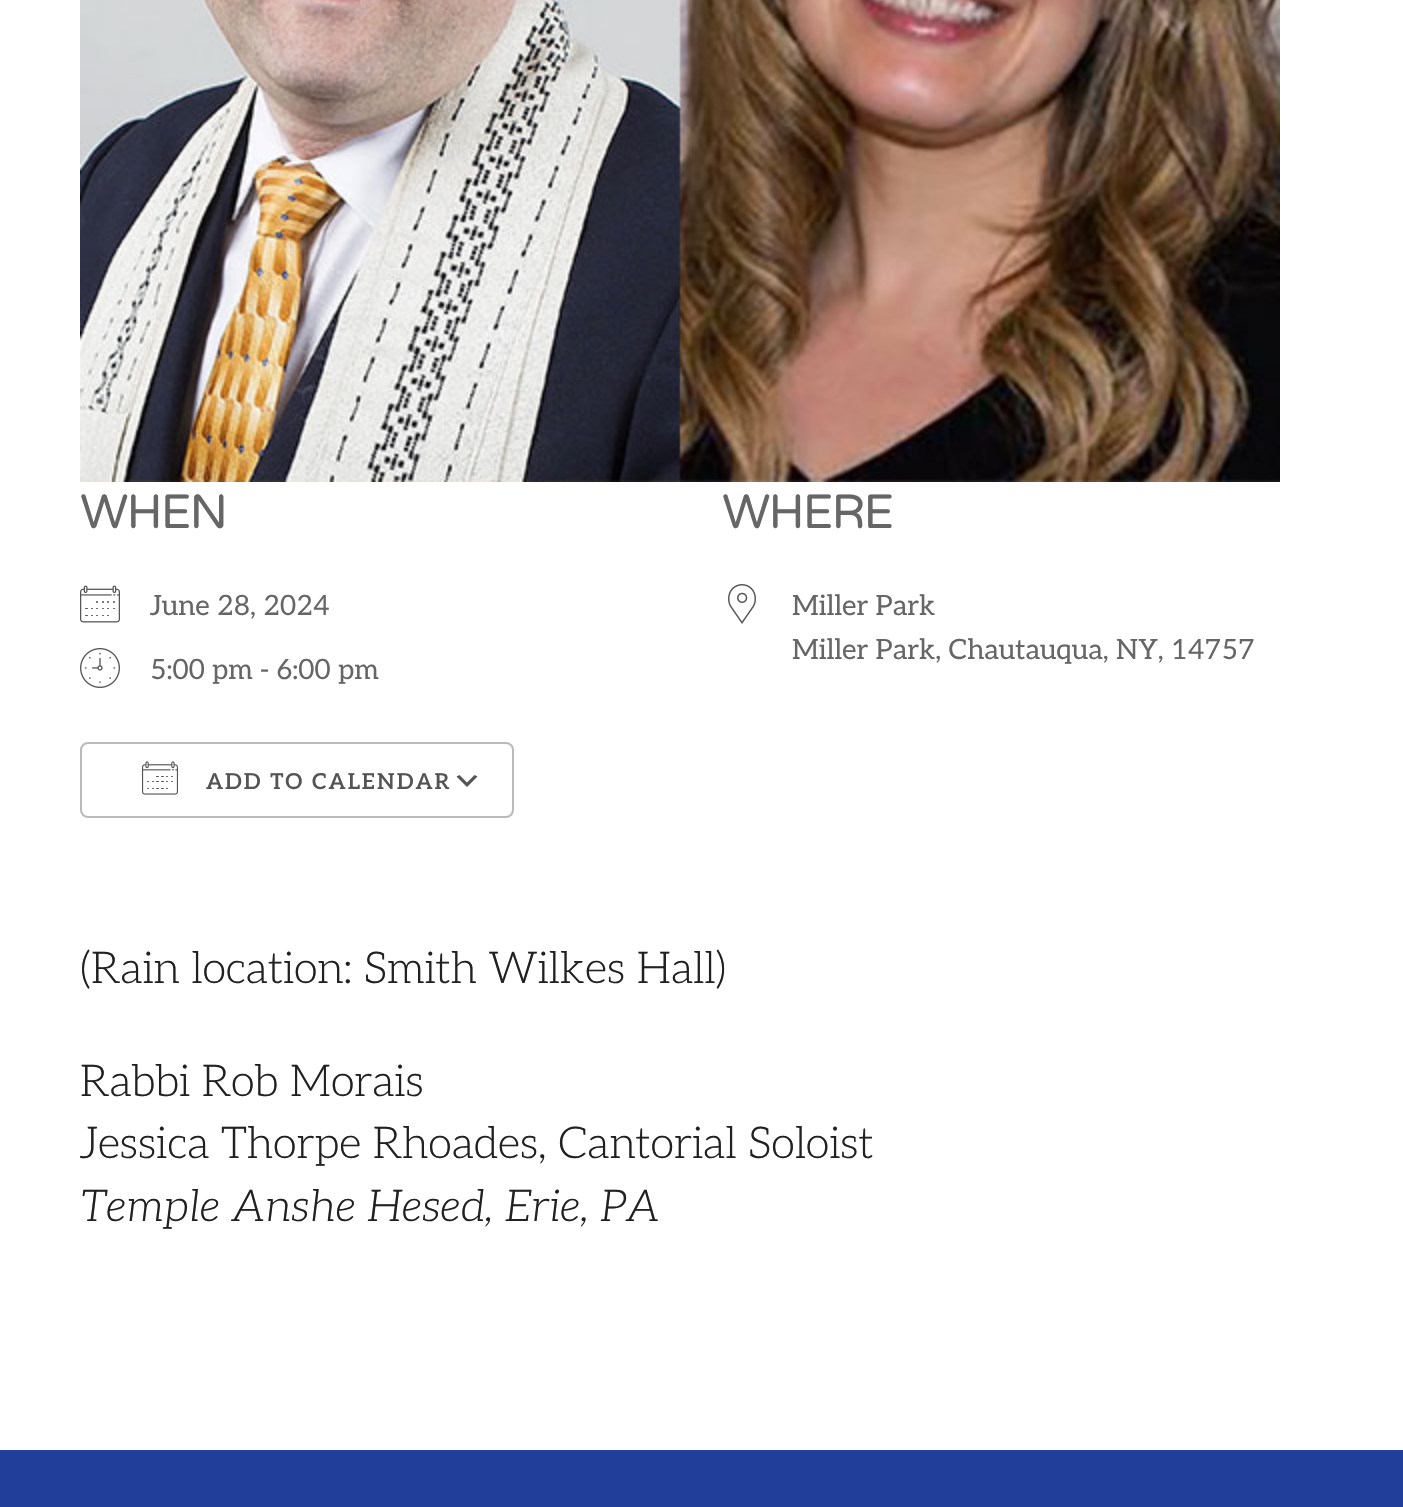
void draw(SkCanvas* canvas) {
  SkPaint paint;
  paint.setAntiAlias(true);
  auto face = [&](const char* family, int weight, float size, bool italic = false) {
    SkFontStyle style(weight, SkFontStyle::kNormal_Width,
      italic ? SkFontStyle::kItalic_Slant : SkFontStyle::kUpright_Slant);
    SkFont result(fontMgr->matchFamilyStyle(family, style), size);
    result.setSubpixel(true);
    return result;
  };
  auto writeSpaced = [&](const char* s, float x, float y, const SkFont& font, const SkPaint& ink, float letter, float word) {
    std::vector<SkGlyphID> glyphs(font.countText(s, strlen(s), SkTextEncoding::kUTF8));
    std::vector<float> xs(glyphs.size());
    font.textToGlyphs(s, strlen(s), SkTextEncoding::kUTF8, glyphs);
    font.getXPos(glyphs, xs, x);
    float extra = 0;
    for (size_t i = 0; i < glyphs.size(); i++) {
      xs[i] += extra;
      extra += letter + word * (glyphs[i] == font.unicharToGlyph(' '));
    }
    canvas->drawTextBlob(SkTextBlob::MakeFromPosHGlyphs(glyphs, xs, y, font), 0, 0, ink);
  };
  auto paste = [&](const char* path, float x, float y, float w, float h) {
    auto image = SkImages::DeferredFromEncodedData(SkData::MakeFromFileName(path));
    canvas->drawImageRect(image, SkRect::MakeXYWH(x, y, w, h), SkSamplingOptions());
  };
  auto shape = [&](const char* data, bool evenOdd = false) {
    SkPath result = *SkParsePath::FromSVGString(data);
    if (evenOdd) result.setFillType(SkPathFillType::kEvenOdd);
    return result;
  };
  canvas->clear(0xff203e9a);
  paint.setColor(0xffffffff);
  canvas->drawRect(SkRect::MakeXYWH(0, 0, 1403, 1450), paint);
  paste("img/1.png", 80, 0, 1200, 482);
  paste("img/2.png", 80, 585, 40, 38);
  paste("img/3.png", 80, 648, 40, 40);
  paint.setColor(0xff555555);
  canvas->drawPath(shape("M459.5 775L467 782.5L474.5 775L477.5 776.5L467 787L456.5 776.5Z"), paint);
  paint.setStroke(true);
  paint.setStrokeWidth(2);
  paint.setColor(0xffbababa);
  canvas->drawRoundRect(SkRect::MakeXYWH(81, 743, 432, 74), 7, 7, paint);
  paste("img/4.png", 142, 761, 36, 34);
  paste("img/5.png", 728, 584, 28, 40);
  auto f0 = face("Varela Round", 400, 48);
  paint.setStroke(false);
  paint.setColor(0xff666666);
  writeSpaced("WHEN", 80, 528, f0, paint, -2, 0);
  auto f1 = face("Aleo", 400, 28);
  canvas->drawString("June 28, 2024", 150, 615, f1, paint);
  canvas->drawString("5:00 pm - 6:00 pm", 150, 679, f1, paint);
  auto f2 = face("Aleo", 600, 22);
  paint.setColor(0xff545454);
  writeSpaced("ADD TO CALENDAR", 206, 789, f2, paint, 2, 0);
  paint.setColor(0xff666666);
  writeSpaced("WHERE", 722, 528, f0, paint, -2, 0);
  canvas->drawString("Miller Park", 792, 615, f1, paint);
  canvas->drawString("Miller Park, Chautauqua, NY, 14757", 792, 659, f1, paint);
  auto f3 = face("Aleo", 300, 44);
  paint.setColor(0xff212121);
  {
    const struct { const char* s; float x, y; } items[] = {
      {"(Rain location: Smith Wilkes Hall)", 80, 983},
      {"Rabbi Rob Morais", 80, 1096},
      {"Jessica Thorpe Rhoades, Cantorial Soloist", 80, 1158},
    };
    for (auto [s, x, y] : items) {
      canvas->drawString(s, x, y, f3, paint);
    }
  }
  auto f4 = face("Aleo", 300, 44, true);
  canvas->drawString("Temple Anshe Hesed, Erie, PA", 80, 1221, f4, paint);
}
